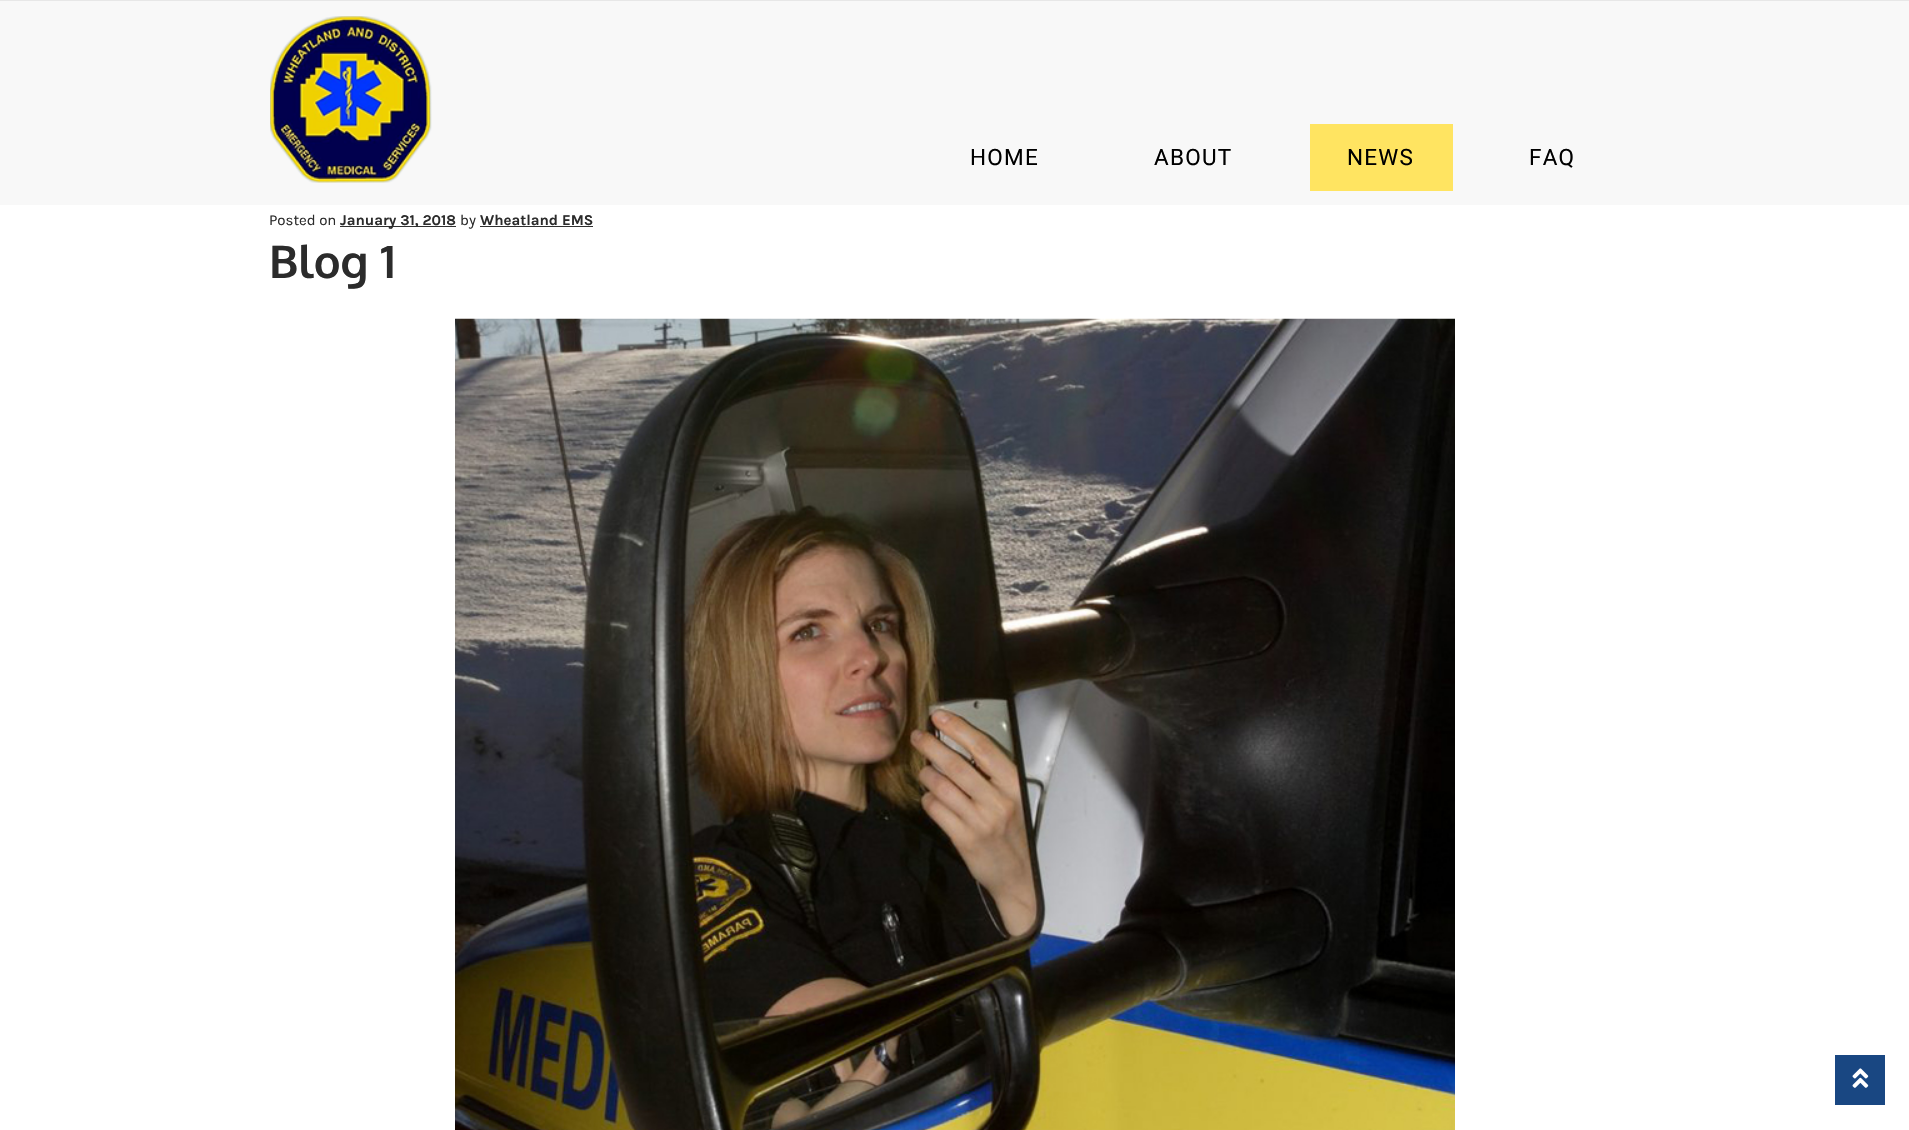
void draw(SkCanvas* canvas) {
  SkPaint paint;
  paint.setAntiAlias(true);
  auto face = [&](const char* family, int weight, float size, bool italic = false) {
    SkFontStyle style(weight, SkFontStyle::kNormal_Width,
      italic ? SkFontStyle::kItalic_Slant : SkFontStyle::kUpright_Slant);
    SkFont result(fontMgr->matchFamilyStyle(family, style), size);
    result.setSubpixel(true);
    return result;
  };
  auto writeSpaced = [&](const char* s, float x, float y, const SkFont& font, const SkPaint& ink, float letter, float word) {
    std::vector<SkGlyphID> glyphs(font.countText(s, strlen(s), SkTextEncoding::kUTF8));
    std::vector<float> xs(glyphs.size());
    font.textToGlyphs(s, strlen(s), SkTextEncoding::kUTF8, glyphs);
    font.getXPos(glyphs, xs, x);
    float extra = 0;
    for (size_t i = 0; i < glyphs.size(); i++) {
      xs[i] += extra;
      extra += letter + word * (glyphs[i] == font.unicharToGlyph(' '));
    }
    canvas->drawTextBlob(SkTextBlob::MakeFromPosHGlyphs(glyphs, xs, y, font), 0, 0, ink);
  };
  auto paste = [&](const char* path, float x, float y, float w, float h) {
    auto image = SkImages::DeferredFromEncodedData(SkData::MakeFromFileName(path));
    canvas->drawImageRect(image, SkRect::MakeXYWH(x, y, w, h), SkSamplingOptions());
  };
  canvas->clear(0xffffffff);
  paint.setColor(0xfff8f8f8);
  canvas->drawRect(SkRect::MakeXYWH(0, 1, 1909, 204), paint);
  paint.setColor(0xffe7e7e7);
  canvas->drawRect(SkRect::MakeXYWH(0, 0, 1909, 1), paint);
  paste("img/1.png", 270, 16, 162, 167);
  {
    const struct { float x, y, w, h; SkColor color; } items[] = {
      {1310, 124, 143, 67, 0xffffe461},
      {340, 226, 116, 1, 0xff303030},
      {480, 226, 113, 1, 0xff303030},
    };
    for (auto [x, y, w, h, color] : items) {
      paint.setColor(color);
      canvas->drawRect(SkRect::MakeXYWH(x, y, w, h), paint);
    }
  }
  paste("img/2.png", 455, 318, 1000, 812);
  paint.setColor(0xff194782);
  canvas->drawRect(SkRect::MakeXYWH(1835, 1055, 50, 50), paint);
  paste("img/3.png", 1852, 1068, 17, 20);
  auto f0 = face("Roboto", 400, 22.5f);
  paint.setColor(0xff000000);
  {
    const struct { const char* s; float x, y; } items[] = {
      {"HOME", 970, 165},
      {"ABOUT", 1154, 165},
      {"NEWS", 1347, 165},
      {"FAQ", 1529, 165},
    };
    for (auto [s, x, y] : items) {
      writeSpaced(s, x, y, f0, paint, 1.25f, 0);
    }
  }
  auto f1 = face("Karla", 400, 15);
  paint.setColor(0xff2b2b2b);
  canvas->drawString("Posted on", 269, 225, f1, paint);
  auto f2 = face("Karla", 700, 15);
  canvas->drawString("January 31, 2018", 340, 225, f2, paint);
  canvas->drawString("by", 460, 225, f1, paint);
  canvas->drawString("Wheatland EMS", 480, 225, f2, paint);
  auto f3 = face("Oxygen", 700, 45);
  canvas->drawString("Blog 1", 269, 278, f3, paint);
}
